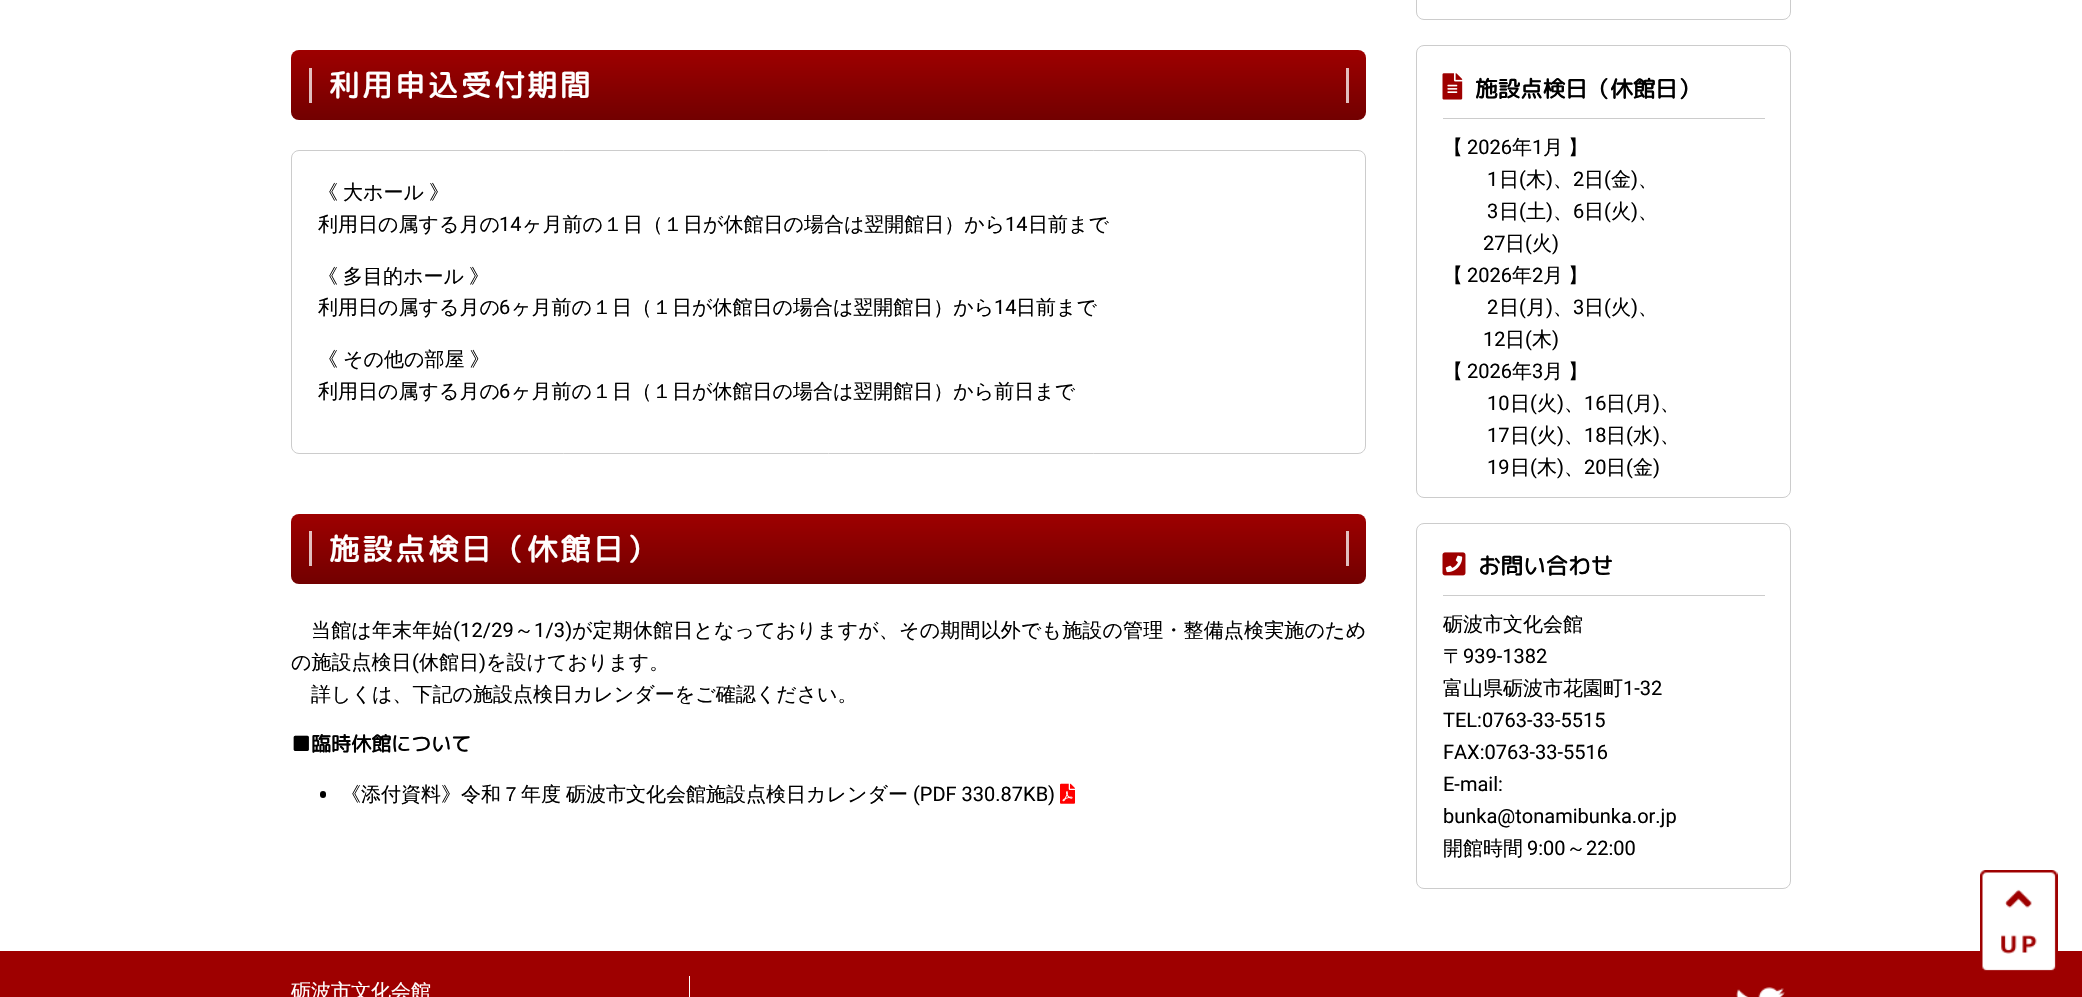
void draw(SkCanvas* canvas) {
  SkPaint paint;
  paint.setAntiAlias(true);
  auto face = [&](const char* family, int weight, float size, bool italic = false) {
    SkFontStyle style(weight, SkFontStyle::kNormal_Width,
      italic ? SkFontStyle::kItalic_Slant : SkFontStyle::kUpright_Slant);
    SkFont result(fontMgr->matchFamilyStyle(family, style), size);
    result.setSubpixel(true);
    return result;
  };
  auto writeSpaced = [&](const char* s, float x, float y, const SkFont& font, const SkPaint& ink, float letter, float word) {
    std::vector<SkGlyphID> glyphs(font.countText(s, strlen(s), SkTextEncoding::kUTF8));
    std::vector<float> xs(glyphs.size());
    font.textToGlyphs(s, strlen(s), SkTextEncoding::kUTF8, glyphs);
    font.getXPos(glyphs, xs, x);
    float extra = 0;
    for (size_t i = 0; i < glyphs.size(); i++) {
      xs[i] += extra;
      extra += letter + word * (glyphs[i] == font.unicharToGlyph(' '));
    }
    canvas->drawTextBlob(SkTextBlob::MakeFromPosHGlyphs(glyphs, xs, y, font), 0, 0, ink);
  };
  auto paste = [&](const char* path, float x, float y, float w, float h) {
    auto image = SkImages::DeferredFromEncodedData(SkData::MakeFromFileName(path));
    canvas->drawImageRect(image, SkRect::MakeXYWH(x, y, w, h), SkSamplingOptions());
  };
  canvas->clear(0xffffffff);
  {
    const SkColor colors[] = {0xff9e0000, 0xff720000};
    const float stops[] = {0, 1};
    const SkPoint ends[] = {{829, 50}, {829, 120}};
    paint.setShader(SkGradientShader::MakeLinear(ends, colors, stops, 2, SkTileMode::kClamp));
    paint.setAlpha(255);
  }
  canvas->drawRoundRect(SkRect::MakeXYWH(291, 50, 1075, 70), 8, 8, paint);
  {
    const SkColor colors[] = {0xffe7bfbf, 0xffdcbfbf};
    const float stops[] = {0, 1};
    const SkPoint ends[] = {{829, 50}, {829, 120}};
    paint.setShader(SkGradientShader::MakeLinear(ends, colors, stops, 2, SkTileMode::kClamp));
    paint.setAlpha(255);
  }
  canvas->drawRect(SkRect::MakeXYWH(1346, 68, 3, 35), paint);
  canvas->drawRect(SkRect::MakeXYWH(309, 68, 3, 35), paint);
  paint.setStroke(true);
  paint.setStrokeWidth(1);
  paint.setShader(nullptr);
  paint.setColor(0xffcccccc);
  canvas->drawRoundRect(SkRect::MakeXYWH(291.5f, 150.5f, 1074, 303), 7.5f, 7.5f, paint);
  paint.setStroke(false);
  {
    const SkColor colors[] = {0xff9e0000, 0xff720000};
    const float stops[] = {0, 1};
    const SkPoint ends[] = {{829, 514}, {829, 584}};
    paint.setShader(SkGradientShader::MakeLinear(ends, colors, stops, 2, SkTileMode::kClamp));
    paint.setAlpha(255);
  }
  canvas->drawRoundRect(SkRect::MakeXYWH(291, 514, 1075, 70), 8, 8, paint);
  {
    const SkColor colors[] = {0xffe7bfbf, 0xffdcbfbf};
    const float stops[] = {0, 1};
    const SkPoint ends[] = {{829, 514}, {829, 584}};
    paint.setShader(SkGradientShader::MakeLinear(ends, colors, stops, 2, SkTileMode::kClamp));
    paint.setAlpha(255);
  }
  canvas->drawRect(SkRect::MakeXYWH(1346, 531, 3, 35), paint);
  canvas->drawRect(SkRect::MakeXYWH(309, 531, 3, 35), paint);
  paint.setShader(nullptr);
  paint.setColor(0xff000000);
  canvas->drawRoundRect(SkRect::MakeXYWH(320, 791, 6, 7), 3, 3, paint);
  paste("img/1.png", 1060, 783, 15, 21);
  paint.setStroke(true);
  paint.setColor(0xffcccccc);
  canvas->drawRoundRect(SkRect::MakeXYWH(1416.5f, -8.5f, 374, 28), 7.5f, 7.5f, paint);
  canvas->drawRoundRect(SkRect::MakeXYWH(1416.5f, 45.5f, 374, 452), 7.5f, 7.5f, paint);
  paint.setStroke(false);
  canvas->drawRect(SkRect::MakeXYWH(1443, 118, 322, 1), paint);
  paste("img/2.png", 1442, 73, 21, 27);
  paint.setStroke(true);
  canvas->drawRoundRect(SkRect::MakeXYWH(1416.5f, 523.5f, 374, 365), 7.5f, 7.5f, paint);
  paint.setStroke(false);
  canvas->drawRect(SkRect::MakeXYWH(1443, 595, 322, 1), paint);
  paste("img/3.png", 1442, 552, 24, 24);
  paint.setColor(0xff9e0000);
  canvas->drawRect(SkRect::MakeXYWH(0, 951, 2082, 46), paint);
  paste("img/4.png", 1980, 870, 78, 101);
  paint.setColor(0xffffffff);
  canvas->drawRect(SkRect::MakeXYWH(689, 976, 1, 21), paint);
  paste("img/5.png", 1736, 987, 49, 10);
  auto f0 = face("Rounded Mplus 1c", 700, 30);
  writeSpaced("利用申込受付期間", 329, 96, f0, paint, 3, 0);
  auto f1 = face("WenQuanYi Zen Hei", 500, 20);
  paint.setColor(0xff000000);
  writeSpaced("《 大ホール 》", 318, 199, f1, paint, 0, -1);
  canvas->drawString("利用日の属する月の", 318, 231, f1, paint);
  auto f2 = face("Roboto", 400, 20);
  canvas->drawString("14", 499, 231, f2, paint);
  canvas->drawString("ヶ月前の１日（１日が休館日の場合は翌開館日）から", 522, 231, f1, paint);
  canvas->drawString("14", 1005, 231, f2, paint);
  canvas->drawString("日前まで", 1028, 231, f1, paint);
  writeSpaced("《 多目的ホール 》", 318, 283, f1, paint, 0, -1);
  canvas->drawString("利用日の属する月の", 318, 314, f1, paint);
  canvas->drawString("6", 499, 314, f2, paint);
  canvas->drawString("ヶ月前の１日（１日が休館日の場合は翌開館日）から", 511, 314, f1, paint);
  canvas->drawString("14", 994, 314, f2, paint);
  canvas->drawString("日前まで", 1016, 314, f1, paint);
  writeSpaced("《 その他の部屋 》", 318, 366, f1, paint, 0, -1);
  canvas->drawString("利用日の属する月の", 318, 398, f1, paint);
  canvas->drawString("6", 499, 398, f2, paint);
  canvas->drawString("ヶ月前の１日（１日が休館日の場合は翌開館日）から前日まで", 511, 398, f1, paint);
  paint.setColor(0xffffffff);
  writeSpaced("施設点検日（休館日）", 329, 560, f0, paint, 3, 0);
  paint.setColor(0xff000000);
  writeSpaced("当館は年末年始", 311, 637, f1, paint, 0.15f, 0);
  writeSpaced("(12/29", 453, 637, f2, paint, 0.15f, 0);
  writeSpaced("～", 514, 637, f1, paint, 0.15f, 0);
  writeSpaced("1/3)", 534, 637, f2, paint, 0.15f, 0);
  writeSpaced("が定期休館日となっておりますが、その期間以外でも施設の管理・整備点検実施のため", 572, 637, f1, paint, 0.15f, 0);
  canvas->drawString("の施設点検日", 291, 669, f1, paint);
  canvas->drawString("(", 412, 669, f2, paint);
  canvas->drawString("休館日", 419, 669, f1, paint);
  canvas->drawString(")", 479, 669, f2, paint);
  canvas->drawString("を設けております。", 486, 669, f1, paint);
  canvas->drawString("詳しくは、下記の施設点検日カレンダーをご確認ください。", 311, 701, f1, paint);
  auto f3 = face("Rounded Mplus 1c", 700, 20);
  canvas->drawString("■臨時休館について", 291, 751, f3, paint);
  canvas->drawString("《添付資料》令和７年度", 341, 801, f1, paint);
  canvas->drawString("砺波市文化会館施設点検日カレンダー", 566, 801, f1, paint);
  canvas->drawString("(PDF 330.87KB)", 913, 801, f2, paint);
  auto f4 = face("Rounded Mplus 1c", 700, 22.5f);
  canvas->drawString("施設点検日（休館日）", 1475, 97, f4, paint);
  canvas->drawString("【", 1443, 154, f1, paint);
  canvas->drawString("2026", 1467, 154, f2, paint);
  canvas->drawString("年", 1512, 154, f1, paint);
  canvas->drawString("1", 1532, 154, f2, paint);
  writeSpaced("月 】", 1543, 154, f1, paint, 0, -1);
  canvas->drawString("1", 1487, 186, f2, paint);
  canvas->drawString("日", 1499, 186, f1, paint);
  canvas->drawString("(", 1519, 186, f2, paint);
  canvas->drawString("木", 1526, 186, f1, paint);
  canvas->drawString(")", 1546, 186, f2, paint);
  canvas->drawString("2", 1573, 186, f2, paint);
  canvas->drawString("日", 1584, 186, f1, paint);
  canvas->drawString("(", 1604, 186, f2, paint);
  canvas->drawString("金", 1611, 186, f1, paint);
  canvas->drawString(")", 1631, 186, f2, paint);
  canvas->drawString("、", 1553, 186, f1, paint);
  canvas->drawString("、", 1638, 186, f1, paint);
  canvas->drawString("3", 1487, 218, f2, paint);
  canvas->drawString("日", 1499, 218, f1, paint);
  canvas->drawString("(", 1519, 218, f2, paint);
  canvas->drawString("土", 1526, 218, f1, paint);
  canvas->drawString(")", 1546, 218, f2, paint);
  canvas->drawString("、", 1553, 218, f1, paint);
  canvas->drawString("6", 1573, 218, f2, paint);
  canvas->drawString("日", 1584, 218, f1, paint);
  canvas->drawString("(", 1604, 218, f2, paint);
  canvas->drawString("火", 1611, 218, f1, paint);
  canvas->drawString(")", 1631, 218, f2, paint);
  canvas->drawString("、", 1638, 218, f1, paint);
  canvas->drawString("27", 1483, 250, f2, paint);
  canvas->drawString("日", 1505, 250, f1, paint);
  canvas->drawString("(", 1525, 250, f2, paint);
  canvas->drawString("火", 1532, 250, f1, paint);
  canvas->drawString(")", 1552, 250, f2, paint);
  canvas->drawString("【", 1443, 282, f1, paint);
  canvas->drawString("2026", 1467, 282, f2, paint);
  canvas->drawString("年", 1512, 282, f1, paint);
  canvas->drawString("2", 1532, 282, f2, paint);
  writeSpaced("月 】", 1543, 282, f1, paint, 0, -1);
  canvas->drawString("2", 1487, 314, f2, paint);
  canvas->drawString("日", 1499, 314, f1, paint);
  canvas->drawString("(", 1519, 314, f2, paint);
  canvas->drawString("月", 1526, 314, f1, paint);
  canvas->drawString(")", 1546, 314, f2, paint);
  canvas->drawString("、", 1553, 314, f1, paint);
  canvas->drawString("3", 1573, 314, f2, paint);
  canvas->drawString("日", 1584, 314, f1, paint);
  canvas->drawString("(", 1604, 314, f2, paint);
  canvas->drawString("火", 1611, 314, f1, paint);
  canvas->drawString(")", 1631, 314, f2, paint);
  canvas->drawString("、", 1638, 314, f1, paint);
  canvas->drawString("12", 1483, 346, f2, paint);
  canvas->drawString("日", 1505, 346, f1, paint);
  canvas->drawString("(", 1525, 346, f2, paint);
  canvas->drawString("木", 1532, 346, f1, paint);
  canvas->drawString(")", 1552, 346, f2, paint);
  canvas->drawString("【", 1443, 378, f1, paint);
  canvas->drawString("2026", 1467, 378, f2, paint);
  canvas->drawString("年", 1512, 378, f1, paint);
  canvas->drawString("3", 1532, 378, f2, paint);
  writeSpaced("月 】", 1543, 378, f1, paint, 0, -1);
  canvas->drawString("10", 1487, 410, f2, paint);
  canvas->drawString("日", 1510, 410, f1, paint);
  canvas->drawString("(", 1530, 410, f2, paint);
  canvas->drawString("火", 1537, 410, f1, paint);
  canvas->drawString(")", 1557, 410, f2, paint);
  canvas->drawString("、", 1564, 410, f1, paint);
  canvas->drawString("16", 1584, 410, f2, paint);
  canvas->drawString("日", 1606, 410, f1, paint);
  canvas->drawString("(", 1626, 410, f2, paint);
  canvas->drawString("月", 1633, 410, f1, paint);
  canvas->drawString(")", 1653, 410, f2, paint);
  canvas->drawString("、", 1660, 410, f1, paint);
  canvas->drawString("17", 1487, 442, f2, paint);
  canvas->drawString("日", 1510, 442, f1, paint);
  canvas->drawString("(", 1530, 442, f2, paint);
  canvas->drawString("火", 1537, 442, f1, paint);
  canvas->drawString(")", 1557, 442, f2, paint);
  canvas->drawString("、", 1564, 442, f1, paint);
  canvas->drawString("18", 1584, 442, f2, paint);
  canvas->drawString("日", 1606, 442, f1, paint);
  canvas->drawString("(", 1626, 442, f2, paint);
  canvas->drawString("水", 1633, 442, f1, paint);
  canvas->drawString(")", 1653, 442, f2, paint);
  canvas->drawString("、", 1660, 442, f1, paint);
  canvas->drawString("19", 1487, 474, f2, paint);
  canvas->drawString("日", 1510, 474, f1, paint);
  canvas->drawString("(", 1530, 474, f2, paint);
  canvas->drawString("木", 1537, 474, f1, paint);
  canvas->drawString(")", 1557, 474, f2, paint);
  canvas->drawString("、", 1564, 474, f1, paint);
  canvas->drawString("20", 1584, 474, f2, paint);
  canvas->drawString("日", 1606, 474, f1, paint);
  canvas->drawString("(", 1626, 474, f2, paint);
  canvas->drawString("金", 1633, 474, f1, paint);
  canvas->drawString(")", 1653, 474, f2, paint);
  canvas->drawString("お問い合わせ", 1478, 574, f4, paint);
  canvas->drawString("砺波市文化会館", 1443, 631, f1, paint);
  canvas->drawString("〒", 1443, 663, f1, paint);
  canvas->drawString("939-1382", 1463, 663, f2, paint);
  canvas->drawString("富山県砺波市花園町", 1443, 695, f1, paint);
  {
    const struct { const char* s; float x, y; } items[] = {
      {"1-32", 1623, 695},
      {"TEL:0763-33-5515", 1443, 727},
      {"FAX:0763-33-5516", 1443, 759},
      {"E-mail:", 1443, 791},
      {"bunka@tonamibunka.or.jp", 1443, 823},
    };
    for (auto [s, x, y] : items) {
      canvas->drawString(s, x, y, f2, paint);
    }
  }
  canvas->drawString("開館時間", 1443, 855, f1, paint);
  canvas->drawString("9:00", 1527, 855, f2, paint);
  canvas->drawString("～", 1566, 855, f1, paint);
  canvas->drawString("22:00", 1586, 855, f2, paint);
  paint.setColor(0xffffffff);
  canvas->drawString("砺波市文化会館", 291, 998, f1, paint);
}
